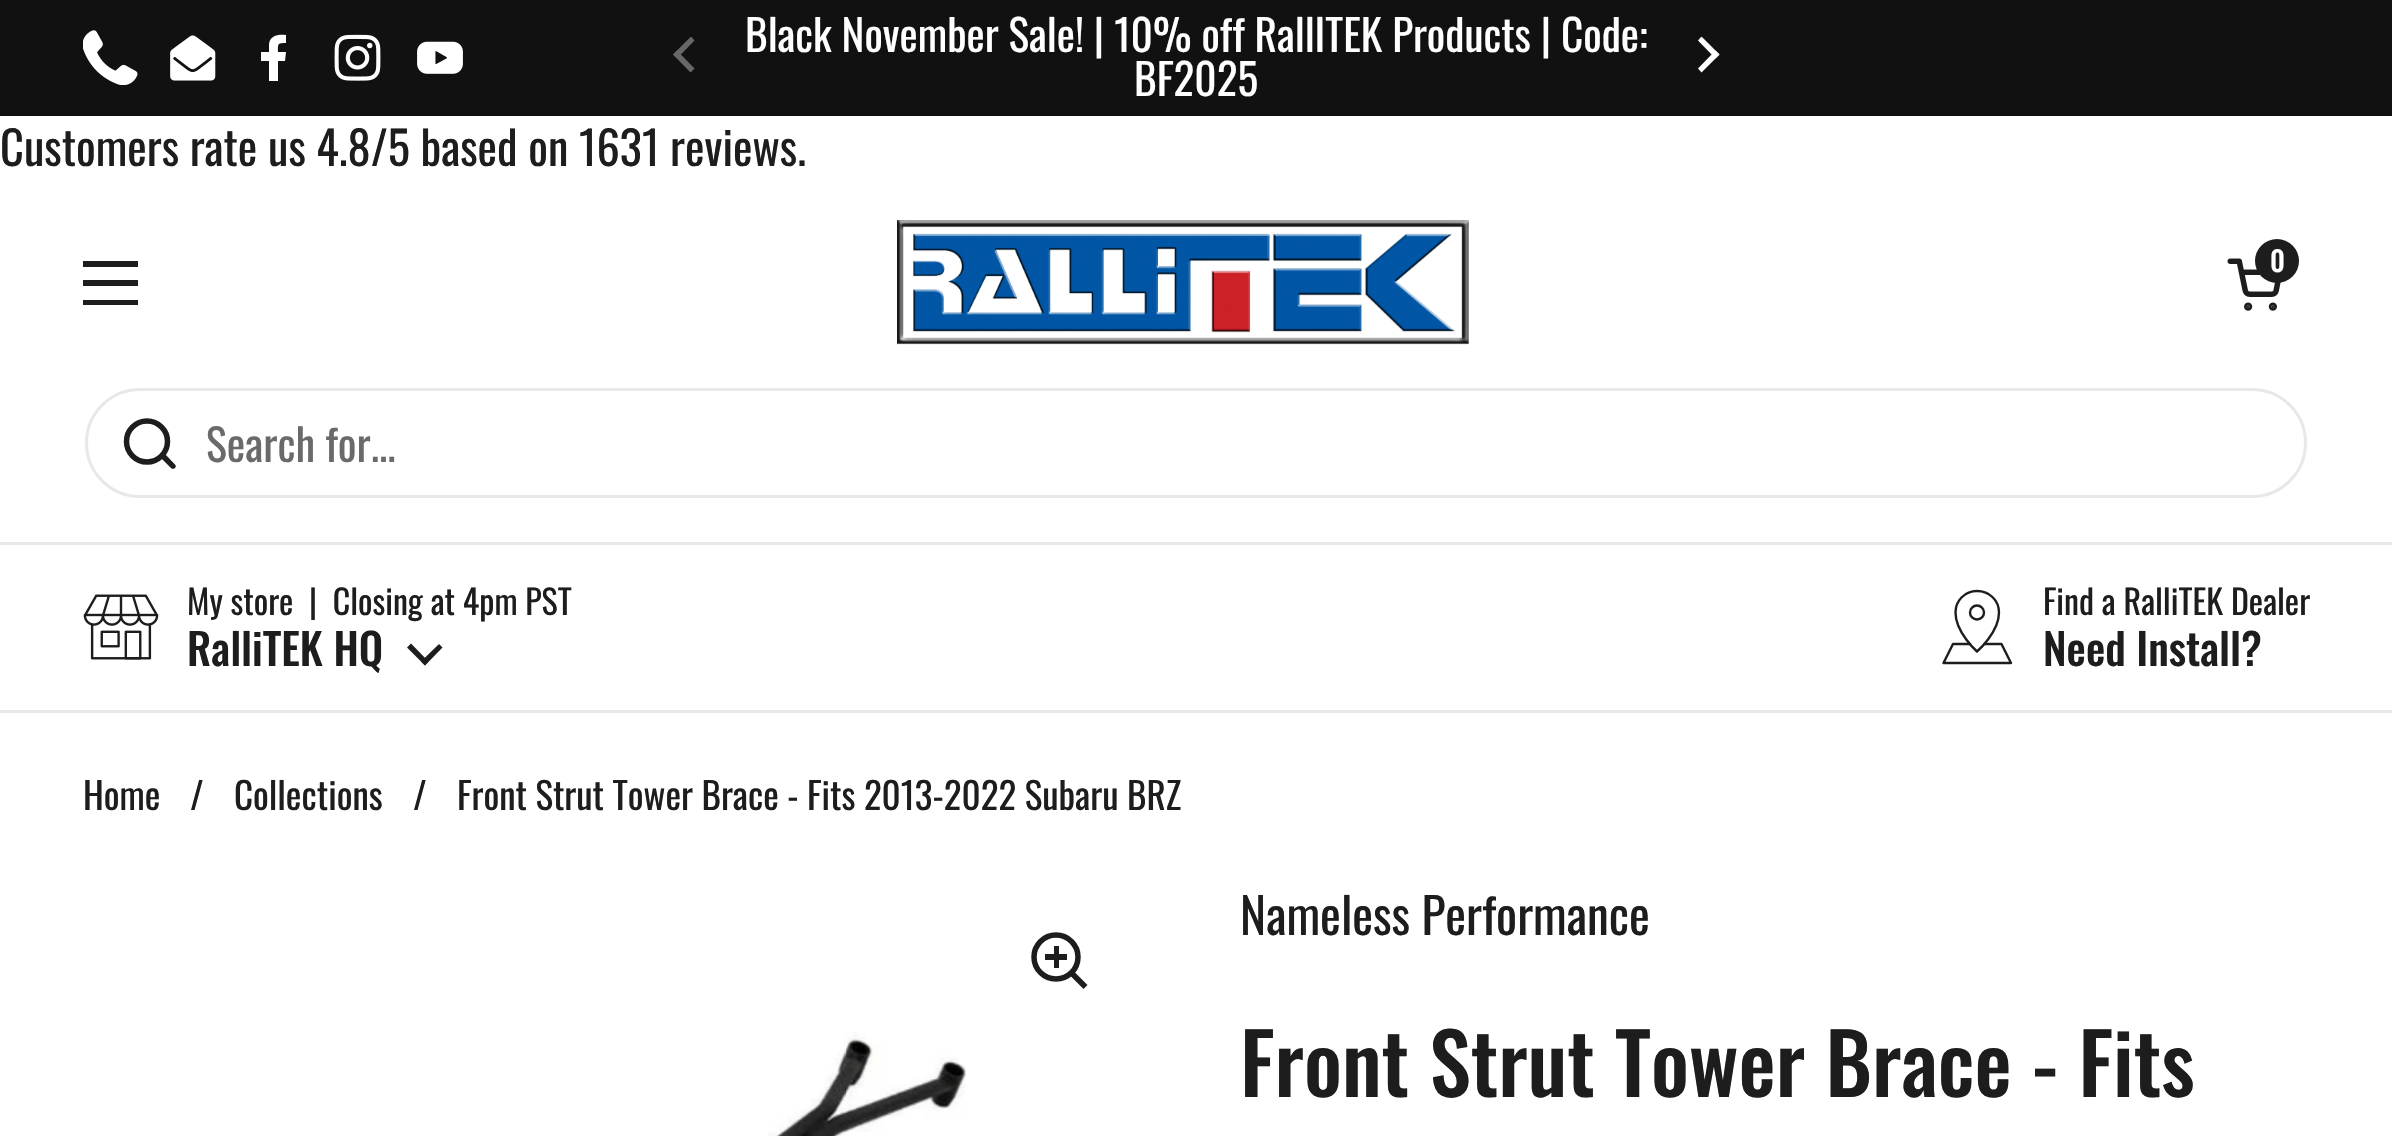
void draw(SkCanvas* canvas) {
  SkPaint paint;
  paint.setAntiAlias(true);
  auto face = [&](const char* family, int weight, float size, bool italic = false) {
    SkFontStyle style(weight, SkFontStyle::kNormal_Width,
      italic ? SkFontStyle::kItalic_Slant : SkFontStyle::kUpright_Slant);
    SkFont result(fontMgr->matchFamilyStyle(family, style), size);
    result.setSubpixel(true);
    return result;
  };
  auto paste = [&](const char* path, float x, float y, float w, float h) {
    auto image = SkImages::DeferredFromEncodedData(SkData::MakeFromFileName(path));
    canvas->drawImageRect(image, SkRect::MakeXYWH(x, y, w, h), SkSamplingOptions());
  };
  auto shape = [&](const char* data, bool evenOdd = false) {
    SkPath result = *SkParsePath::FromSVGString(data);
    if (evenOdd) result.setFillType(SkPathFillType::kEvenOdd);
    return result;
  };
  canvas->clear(0xffffffff);
  paint.setColor(0xff111111);
  canvas->drawRect(SkRect::MakeXYWH(0, 0, 2392, 116), paint);
  paste("img/1.png", 83, 30, 55, 55);
  paste("img/2.png", 170, 35, 46, 46);
  paint.setColor(0xffffffff);
  canvas->drawPath(shape("M285 61L286 52H278C278 44 277 43 286 43V35C279 34 270 35 269 44V52H261V61H269V81H278V61Z"), paint);
  paste("img/3.png", 334, 34, 47, 47);
  paste("img/4.png", 417, 41, 46, 33);
  paint.setColor(0xff676767);
  canvas->drawPath(shape("M694.5 40.5L691.5 37H690.5L673 54.5L677 58.5Z"), paint);
  canvas->drawPath(shape("M690.5 72.5L673 54.5L677 50.5L694.5 68.5Z"), paint);
  paint.setColor(0xffffffff);
  canvas->drawPath(shape("M1698 68.5L1715.5 50.5L1719.5 54.5L1701.5 72.5Z"), paint);
  canvas->drawPath(shape("M1702 37L1719.5 54.5L1715.5 58.5L1698 40.5L1701 37Z"), paint);
  {
    const struct { float x, y, w, h; SkColor color; } items[] = {
      {83, 261, 55, 6, 0xff1d1d1d},
      {83, 280, 55, 6, 0xff1d1d1d},
      {83, 300, 55, 5, 0xff1d1d1d},
    };
    for (auto [x, y, w, h, color] : items) {
      paint.setColor(color);
      canvas->drawRect(SkRect::MakeXYWH(x, y, w, h), paint);
    }
  }
  paste("img/5.png", 897, 220, 572, 125);
  paste("img/6.png", 2227, 258, 54, 53);
  canvas->drawCircle(2277, 261, 22, paint);
  paint.setColor(0xffe8e8e8);
  canvas->drawRect(SkRect::MakeXYWH(0, 542, 2392, 3), paint);
  paint.setStroke(true);
  paint.setStrokeWidth(3);
  canvas->drawRoundRect(SkRect::MakeXYWH(86.5f, 389.5f, 2219, 107), 53.5f, 53.5f, paint);
  paint.setStrokeWidth(5.5f);
  paint.setColor(0xff1d1d1d);
  canvas->drawCircle(147, 441.5f, 20.5f, paint);
  paint.setStroke(false);
  canvas->drawPath(shape("M165.5 454.5L163.5 452.5L159.5 456.5L161.5 458.5ZM171 468C173.5 470.5 177.5 467 175 464.5ZM161.5 458.5L171 468L175 464.5L165.5 454.5Z"), paint);
  paint.setColor(0xffe8e8e8);
  canvas->drawRect(SkRect::MakeXYWH(0, 710, 2392, 3), paint);
  paste("img/7.png", 83, 594, 76, 66);
  paint.setColor(0xff1d1d1d);
  canvas->drawPath(shape("M411 643.5L428.5 661.5L425 665.5L407 647.5Z"), paint);
  canvas->drawPath(shape("M442.5 647.5L425 665.5L421 661.5L439 644Z"), paint);
  paint.setStroke(true);
  paint.setStrokeWidth(2.4f);
  paint.setStrokeCap(SkPaint::kRound_Cap);
  paint.setStrokeJoin(SkPaint::kRound_Join);
  canvas->drawPath(shape("M1984.5 644H2001.5L2011 663H1943.5L1953 644H1970"), paint);
  canvas->drawPath(shape("M1977 591C1965 591 1955.5 600.5 1955.5 612.5C1955.5 632.5 1977 651.5 1977 651.5C1977 651.5 1999 632.5 1999 612.5C1999 600.5 1989.5 591 1977 591Z"), paint);
  paint.setStrokeCap(SkPaint::kButt_Cap);
  paint.setStrokeJoin(SkPaint::kMiter_Join);
  canvas->drawCircle(1977, 612.5f, 7, paint);
  paint.setStrokeWidth(5.5f);
  canvas->drawCircle(1056, 957, 22, paint);
  paint.setStroke(false);
  canvas->drawRect(SkRect::MakeXYWH(1054, 946, 5, 22), paint);
  canvas->drawRect(SkRect::MakeXYWH(1045, 954, 22, 6), paint);
  canvas->drawPath(shape("M1070.5 976L1074.5 972L1087.5 985L1083.5 989Z"), paint);
  paste("img/8.png", 768, 1032, 198, 104);
  auto f0 = face("Oswald", 400, 43.3f);
  paint.setColor(0xffffffff);
  canvas->drawString("Black November Sale! | 10% off RallITEK Products | Code:", 745, 52, f0, paint);
  canvas->drawString("BF2025", 1134, 96, f0, paint);
  auto f1 = face("Oswald", 400, 46.4f);
  paint.setColor(0xff1d1d1d);
  canvas->drawString("Customers rate us 4.8/5 based on 1631 reviews.", 0, 166, f1, paint);
  auto f2 = face("Oswald", 500, 28);
  paint.setColor(0xffffffff);
  canvas->drawString("0", 2270, 272, f2, paint);
  auto f3 = face("Oswald", 400, 44);
  paint.setColor(0xff6a6a6a);
  canvas->drawString("Search for...", 206, 462, f3, paint);
  auto f4 = face("Oswald", 400, 34);
  paint.setColor(0xff1d1d1d);
  canvas->drawString("My store  |  Closing at 4pm PST", 187, 615, f4, paint);
  auto f5 = face("Oswald", 500, 43.3f);
  canvas->drawString("RalliTEK HQ", 187, 666, f5, paint);
  canvas->drawString("Find a RalliTEK Dealer", 2043, 615, f4, paint);
  canvas->drawString("Need Install?", 2043, 666, f5, paint);
  auto f6 = face("Oswald", 400, 37.1f);
  {
    const struct { const char* s; float x, y; } items[] = {
      {"Home", 83, 810},
      {"/", 190, 810},
      {"Collections", 234, 810},
      {"/", 413, 810},
      {"Front Strut Tower Brace - Fits 2013-2022 Subaru BRZ", 457, 810},
    };
    for (auto [s, x, y] : items) {
      canvas->drawString(s, x, y, f6, paint);
    }
  }
  auto f7 = face("Oswald", 400, 49.5f);
  canvas->drawString("Nameless Performance", 1240, 935, f7, paint);
  auto f8 = face("Oswald", 500, 83.5f);
  canvas->drawString("Front Strut Tower Brace - Fits", 1240, 1097, f8, paint);
}
